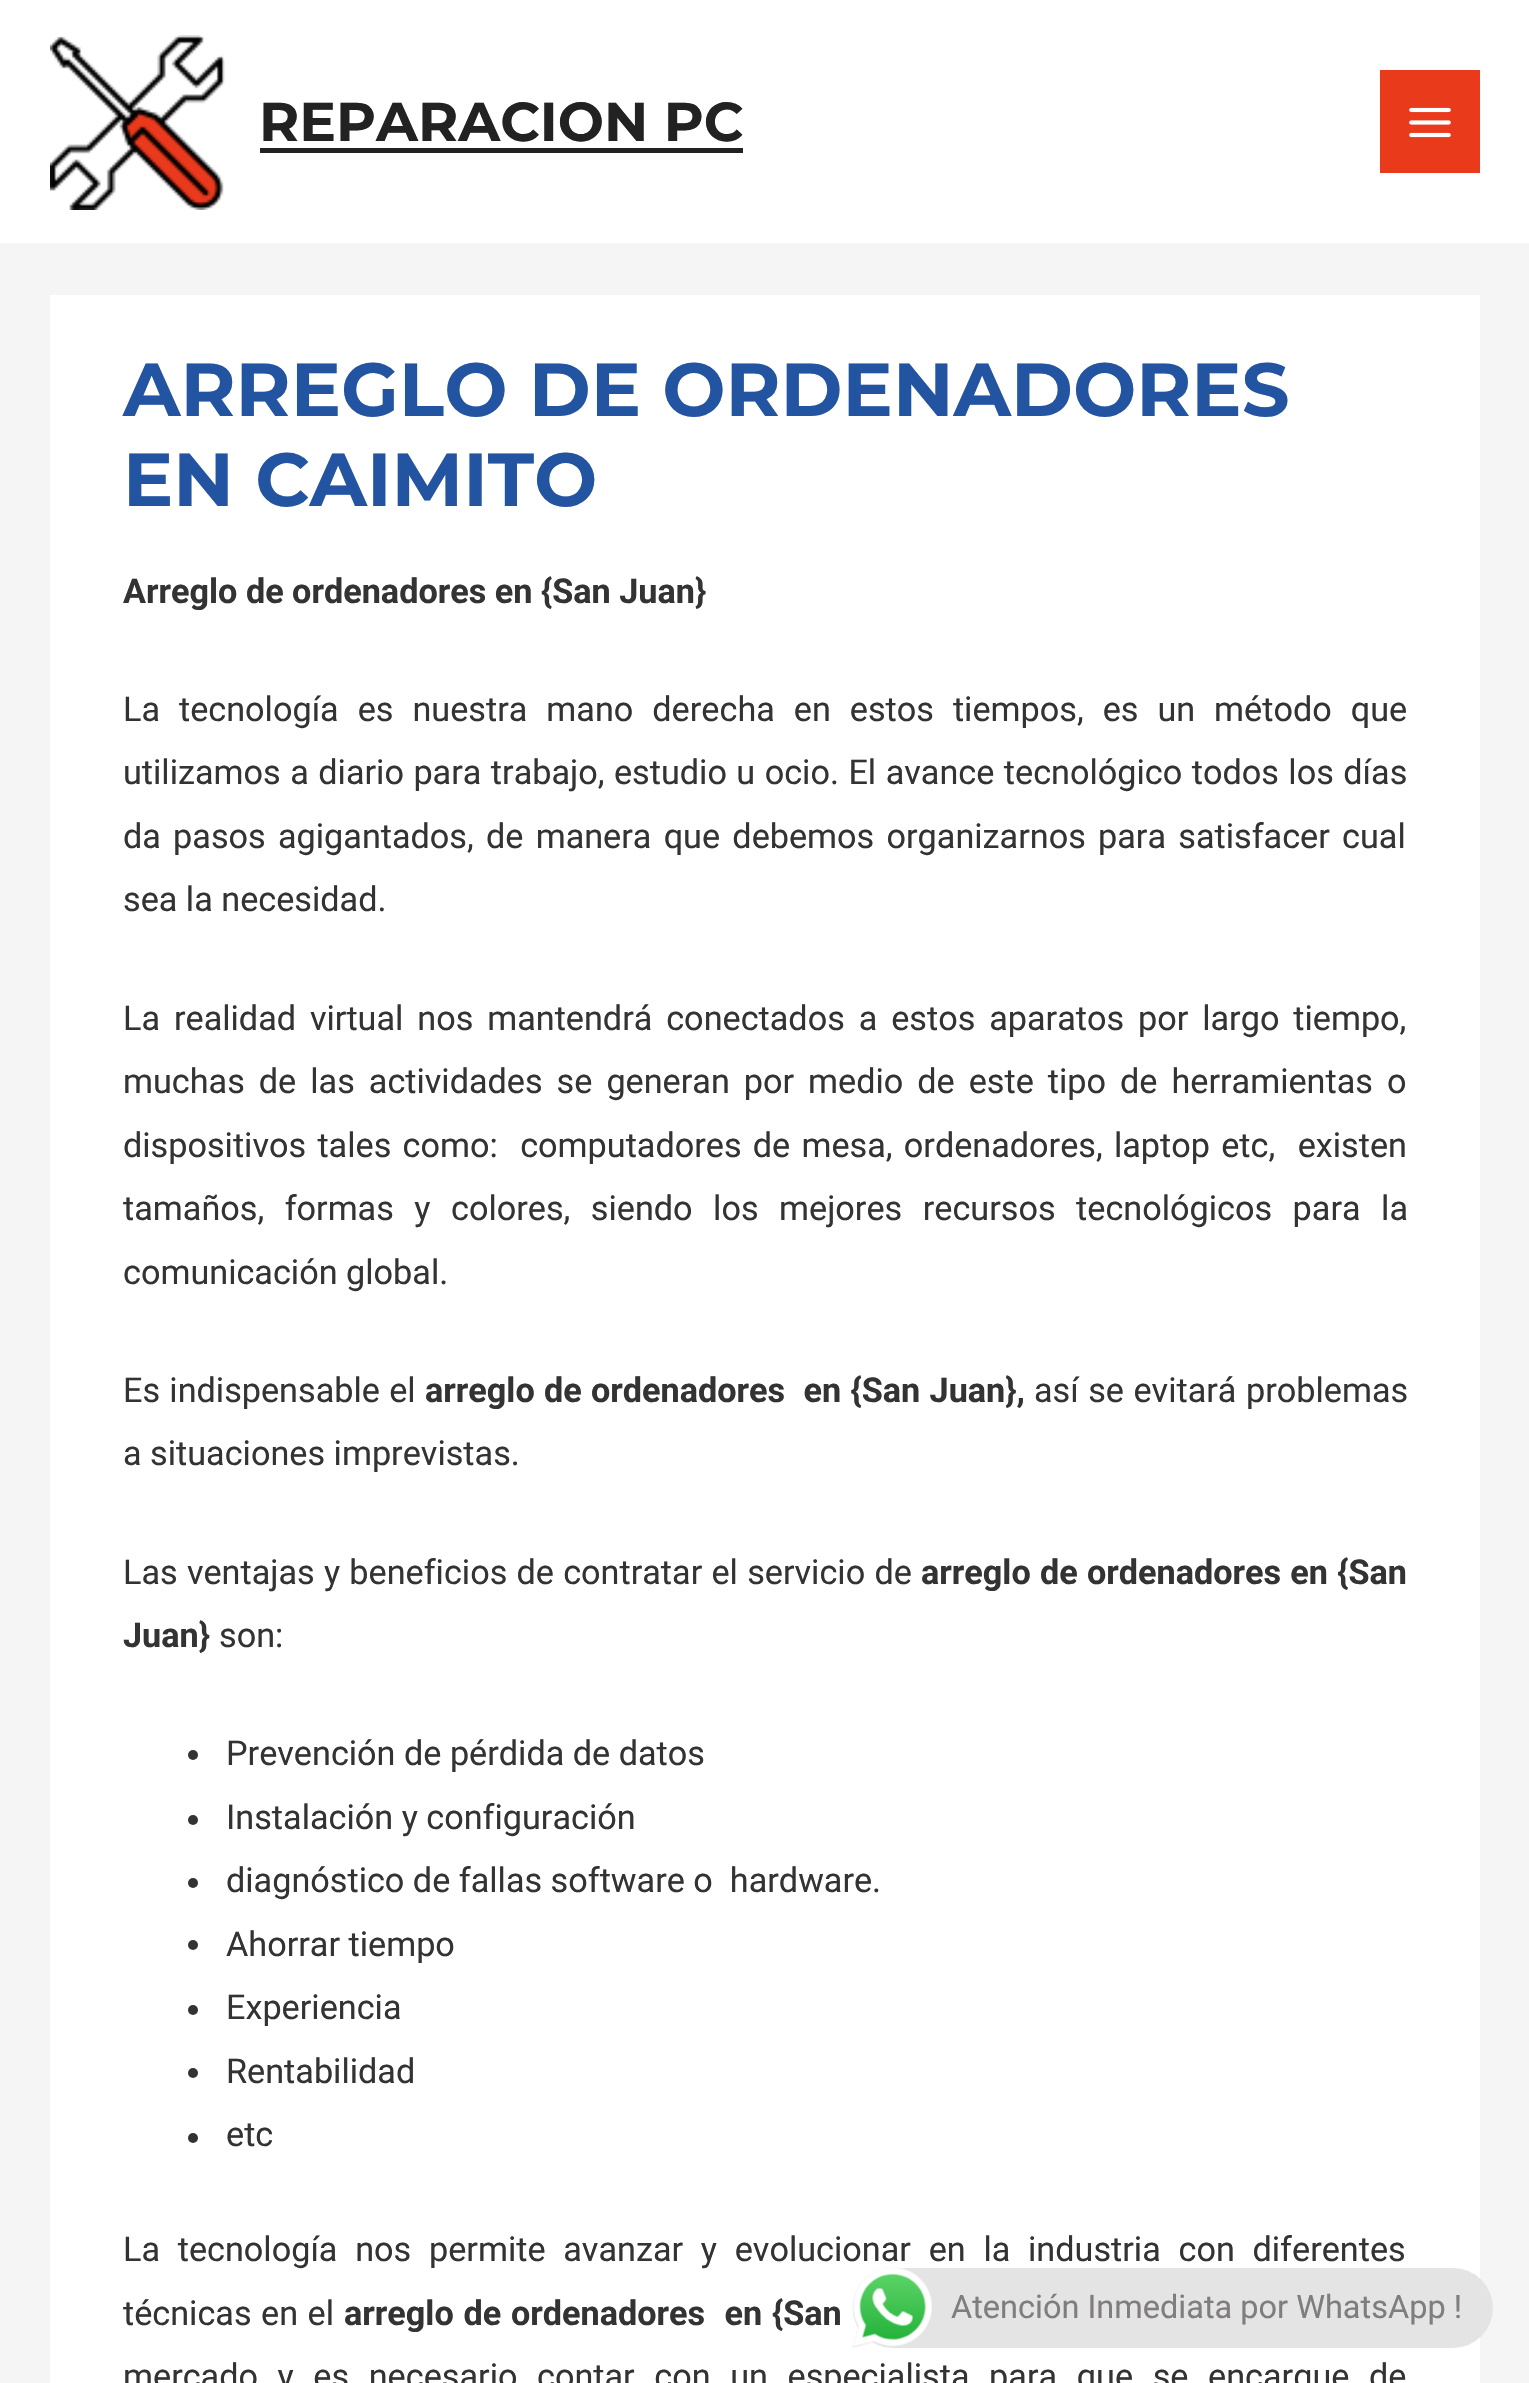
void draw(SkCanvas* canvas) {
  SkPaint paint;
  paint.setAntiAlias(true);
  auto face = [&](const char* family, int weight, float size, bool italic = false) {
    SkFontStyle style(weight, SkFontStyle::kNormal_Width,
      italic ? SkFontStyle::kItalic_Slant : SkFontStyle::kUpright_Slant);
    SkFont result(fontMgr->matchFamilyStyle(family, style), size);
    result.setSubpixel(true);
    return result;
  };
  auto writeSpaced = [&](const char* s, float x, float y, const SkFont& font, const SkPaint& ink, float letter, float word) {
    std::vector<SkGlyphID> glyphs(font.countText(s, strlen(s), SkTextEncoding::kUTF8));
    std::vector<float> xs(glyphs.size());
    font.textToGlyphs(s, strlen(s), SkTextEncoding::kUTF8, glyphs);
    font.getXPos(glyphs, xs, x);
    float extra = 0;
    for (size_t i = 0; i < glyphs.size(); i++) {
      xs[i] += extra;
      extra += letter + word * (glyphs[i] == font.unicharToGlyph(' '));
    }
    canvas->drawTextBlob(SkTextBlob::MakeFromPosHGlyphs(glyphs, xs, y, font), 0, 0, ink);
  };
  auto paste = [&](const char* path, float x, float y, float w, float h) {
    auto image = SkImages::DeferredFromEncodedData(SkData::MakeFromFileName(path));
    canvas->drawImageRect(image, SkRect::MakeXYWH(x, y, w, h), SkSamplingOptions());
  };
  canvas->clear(0xfff5f5f5);
  paint.setColor(0xffffffff);
  canvas->drawRect(SkRect::MakeXYWH(0, 0, 1529, 243), paint);
  paste("img/1.png", 50, 35, 175, 175);
  paint.setColor(0xff222222);
  canvas->drawRect(SkRect::MakeXYWH(260, 148, 483, 5), paint);
  paint.setColor(0xffea3a1c);
  canvas->drawRect(SkRect::MakeXYWH(1380, 70, 100, 103), paint);
  paste("img/2.png", 1409, 107, 42, 31);
  paint.setColor(0xffffffff);
  canvas->drawRect(SkRect::MakeXYWH(50, 295, 1430, 2088), paint);
  paint.setColor(0xff333333);
  canvas->drawCircle(193, 1755, 5, paint);
  canvas->drawCircle(193, 1820, 5, paint);
  canvas->drawCircle(193, 1883, 5, paint);
  canvas->drawCircle(193, 1945, 5, paint);
  canvas->drawCircle(193, 2010, 5, paint);
  canvas->drawCircle(193, 2073, 5, paint);
  canvas->drawCircle(193, 2138, 5, paint);
  auto f0 = face("Montserrat", 100, 54.75f);
  paint.setColor(0xff222222);
  canvas->drawString("REPARACION PC", 259, 141, f0, paint);
  auto f1 = face("Montserrat", 100, 75);
  paint.setColor(0xff2354a2);
  canvas->drawString("ARREGLO DE ORDENADORES", 123, 416, f1, paint);
  canvas->drawString("EN CAIMITO", 123, 506, f1, paint);
  auto f2 = face("Roboto", 700, 34.2f);
  paint.setColor(0xff333333);
  canvas->drawString("Arreglo de ordenadores en {San Juan}", 123, 603, f2, paint);
  auto f3 = face("Roboto", 400, 34.2f);
  writeSpaced("La tecnología es nuestra mano derecha en estos tiempos, es un método que", 123, 721, f3, paint, 0, 10.5f);
  writeSpaced("utilizamos a diario para trabajo, estudio u ocio. El avance tecnológico todos los días", 123, 784, f3, paint, 0, 1);
  writeSpaced("da pasos agigantados, de manera que debemos organizarnos para satisfacer cual", 123, 848, f3, paint, 0, 3.75f);
  canvas->drawString("sea la necesidad.", 123, 911, f3, paint);
  writeSpaced("La realidad virtual nos mantendrá conectados a estos aparatos por largo tiempo,", 123, 1030, f3, paint, 0, 5.4f);
  writeSpaced("muchas de las actividades se generan por medio de este tipo de herramientas o", 123, 1093, f3, paint, 0, 5.5f);
  writeSpaced("dispositivos tales como:  computadores de mesa, ordenadores, laptop etc,  existen", 123, 1157, f3, paint, 0, 2.75f);
  writeSpaced("tamaños, formas y colores, siendo los mejores recursos tecnológicos para la", 123, 1220, f3, paint, 0, 12);
  canvas->drawString("comunicación global.", 123, 1284, f3, paint);
  writeSpaced("Es indispensable el", 123, 1402, f3, paint, 0, 0.75f);
  writeSpaced("arreglo de ordenadores  en {San Juan},", 425, 1402, f2, paint, 0, 0.75f);
  writeSpaced("así se evitará problemas", 1034, 1402, f3, paint, 0, 1);
  canvas->drawString("a situaciones imprevistas.", 123, 1465, f3, paint);
  writeSpaced("Las ventajas y beneficios de contratar el servicio de", 123, 1584, f3, paint, 0, 0.75f);
  writeSpaced("arreglo de ordenadores en {San", 921, 1584, f2, paint, 0, 0.75f);
  canvas->drawString("Juan}", 123, 1647, f2, paint);
  {
    const struct { const char* s; float x, y; } items[] = {
      {"son:", 219, 1647},
      {"Prevención de pérdida de datos", 226, 1765},
      {"Instalación y configuración", 226, 1829},
      {"diagnóstico de fallas software o  hardware", 226, 1892},
      {".", 872, 1892},
      {"Ahorrar tiempo", 226, 1956},
      {"Experiencia", 226, 2019},
      {"Rentabilidad", 226, 2083},
      {"etc", 226, 2146},
    };
    for (auto [s, x, y] : items) {
      canvas->drawString(s, x, y, f3, paint);
    }
  }
  writeSpaced("La tecnología nos permite avanzar y evolucionar en la industria con diferentes", 123, 2261, f3, paint, 0, 9.25f);
  writeSpaced("técnicas en el", 123, 2325, f3, paint, 0, 1);
  writeSpaced("arreglo de ordenadores  en {San", 344, 2325, f2, paint, 0, 1.25f);
  writeSpaced("mercado y es necesario contar con un especialista para que se encargue de", 123, 2388, f3, paint, 0, 11.1f);
  paint.setColor(0xffe4e4e4);
  canvas->drawRoundRect(SkRect::MakeXYWH(853, 2268, 640, 80), 40, 40, paint);
  paste("img/3.png", 852, 2267, 80, 81);
  auto f4 = face("Roboto", 400, 32.5f);
  paint.setColor(0xff7f7d7d);
  canvas->drawString("Atención Inmediata por WhatsApp !", 951, 2318, f4, paint);
}
